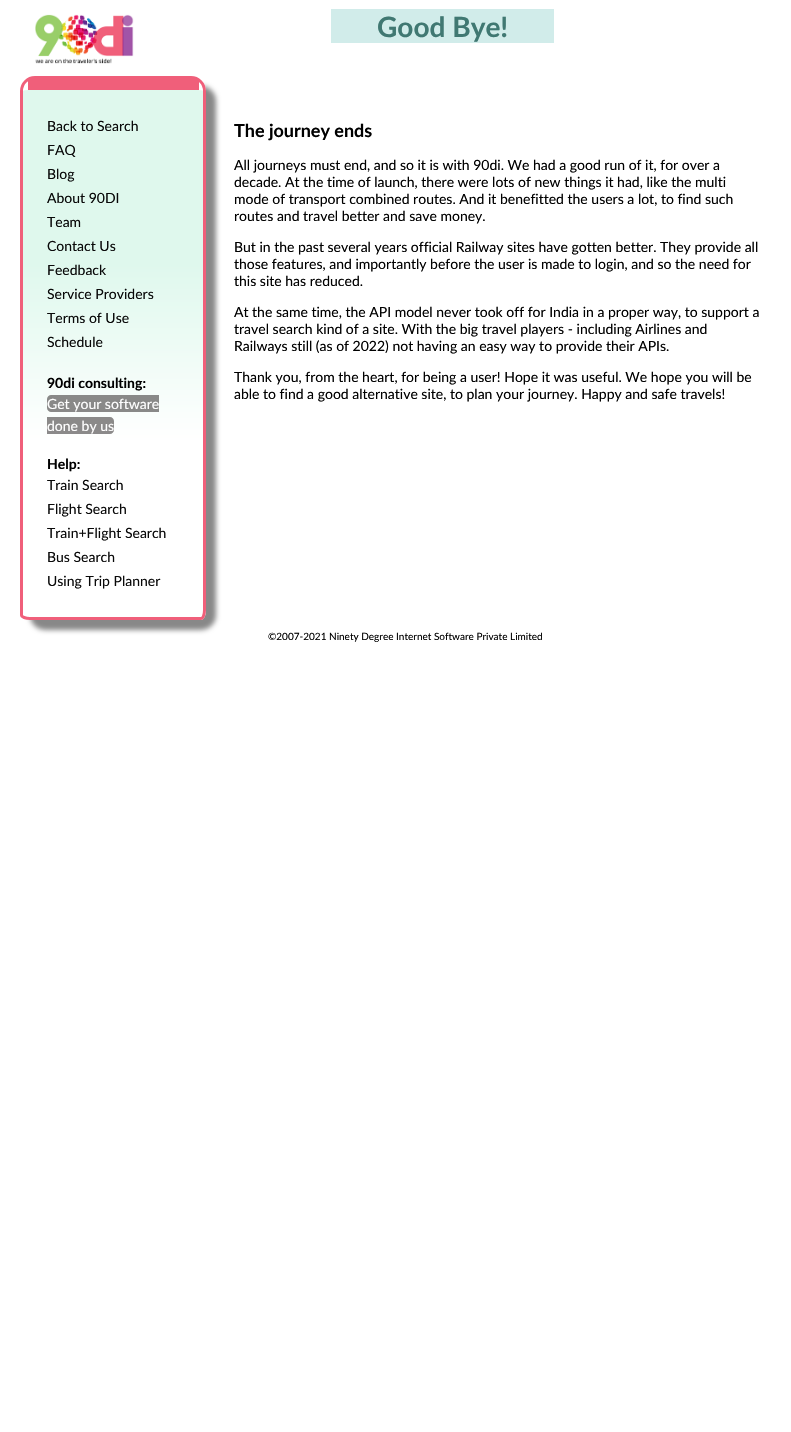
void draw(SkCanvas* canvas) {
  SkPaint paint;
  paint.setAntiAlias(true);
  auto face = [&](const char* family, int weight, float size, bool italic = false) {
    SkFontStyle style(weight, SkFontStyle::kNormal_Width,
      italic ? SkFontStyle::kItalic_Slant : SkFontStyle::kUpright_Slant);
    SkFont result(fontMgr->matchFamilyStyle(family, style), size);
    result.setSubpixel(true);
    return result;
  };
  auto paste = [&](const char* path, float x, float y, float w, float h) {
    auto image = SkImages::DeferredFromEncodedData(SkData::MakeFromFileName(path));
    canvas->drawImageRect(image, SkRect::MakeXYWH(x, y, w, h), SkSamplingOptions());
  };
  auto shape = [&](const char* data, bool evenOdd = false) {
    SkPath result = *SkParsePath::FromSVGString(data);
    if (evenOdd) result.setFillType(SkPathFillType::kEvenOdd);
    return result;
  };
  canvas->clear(0xffffffff);
  paste("img/1.png", 35, 14, 99, 50);
  paint.setColor(0xffd1ecea);
  canvas->drawRect(SkRect::MakeXYWH(331, 9, 223, 34), paint);
  canvas->save();
  canvas->clipPath(shape("M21 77H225V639H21ZM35 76H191C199.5 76 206 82.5 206 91V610C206 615.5 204 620 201 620H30C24.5 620 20 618 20 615V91C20 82.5 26.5 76 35 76Z", true), true);
  paint.setColor(0xff888888);
  paint.setMaskFilter(SkMaskFilter::MakeBlur(kNormal_SkBlurStyle, 2.5f));
  canvas->drawRoundRect(SkRect::MakeXYWH(30, 86, 186, 544), 15, 15, paint);
  paint.setMaskFilter(nullptr);
  canvas->restore();
  {
    const SkColor colors[] = {0xffffffff, 0xffdff8ed};
    const float stops[] = {0.33f, 0.67f};
    const SkPoint ends[] = {{23, 617}, {23, 90}};
    paint.setShader(SkGradientShader::MakeLinear(ends, colors, stops, 2, SkTileMode::kClamp));
    paint.setAlpha(255);
  }
  canvas->drawPath(shape("M35 90H191C198 90 203 90 203 91V610C203 614 202 617 201 617H30C26 617 23 616 23 615V91C23 90 28 90 35 90Z"), paint);
  paint.setStroke(true);
  paint.setStrokeWidth(3);
  paint.setShader(nullptr);
  paint.setColor(0xfff05f7a);
  canvas->drawPath(shape("M35 77.5H191C198.5 77.5 204.5 83.5 204.5 91V610C204.5 614.5 203 618.5 201 618.5H30C25.5 618.5 21.5 617 21.5 615V91C21.5 83.5 27.5 77.5 35 77.5Z"), paint);
  paint.setStroke(false);
  canvas->drawRect(SkRect::MakeXYWH(28, 79, 171, 11), paint);
  paint.setColor(0xff898988);
  canvas->drawPath(shape("M51 395H159V412H51C49 412 47 410 47 408V399C47 397 49 395 51 395Z"), paint);
  paint.setColor(0x993f3c3c);
  canvas->drawPath(shape("M47 417H110C112 417 114 419 114 421V430C114 432 112 434 110 434H47Z"), paint);
  auto f0 = face("Lato", 700, 28);
  paint.setColor(0xff407872);
  canvas->drawString("Good Bye!", 377, 37, f0, paint);
  auto f1 = face("Lato", 400, 14);
  paint.setColor(0xff090909);
  {
    const struct { const char* s; float x, y; } items[] = {
      {"Back to Search", 47, 131},
      {"FAQ", 47, 155},
      {"Blog", 47, 179},
      {"About 90DI", 47, 203},
      {"Team", 47, 227},
      {"Contact Us", 47, 251},
      {"Feedback", 47, 275},
      {"Service Providers", 47, 299},
      {"Terms of Use", 47, 323},
      {"Schedule", 47, 347},
    };
    for (auto [s, x, y] : items) {
      canvas->drawString(s, x, y, f1, paint);
    }
  }
  auto f2 = face("Lato", 700, 14);
  paint.setColor(0xff000000);
  canvas->drawString("90di consulting:", 47, 388, f2, paint);
  paint.setColor(0xffffffff);
  canvas->drawString("Get your software", 47, 409, f1, paint);
  canvas->drawString("done by us", 47, 431, f1, paint);
  paint.setColor(0xff000000);
  canvas->drawString("Help:", 47, 469, f2, paint);
  paint.setColor(0xff090909);
  {
    const struct { const char* s; float x, y; } items[] = {
      {"Train Search", 47, 490},
      {"Flight Search", 47, 514},
      {"Train+Flight Search", 47, 538},
      {"Bus Search", 47, 562},
      {"Using Trip Planner", 47, 586},
    };
    for (auto [s, x, y] : items) {
      canvas->drawString(s, x, y, f1, paint);
    }
  }
  auto f3 = face("Lato", 700, 18);
  paint.setColor(0xff000000);
  canvas->drawString("The journey ends", 234, 137, f3, paint);
  {
    const struct { const char* s; float x, y; } items[] = {
      {"All journeys must end, and so it is with 90di. We had a good run of it, for over a", 234, 170},
      {"decade. At the time of launch, there were lots of new things it had, like the multi", 234, 187},
      {"mode of transport combined routes. And it benefitted the users a lot, to find such", 234, 204},
      {"routes and travel better and save money.", 234, 221},
      {"But in the past several years official Railway sites have gotten better. They provide all", 234, 252},
      {"those features, and importantly before the user is made to login, and so the need for", 234, 269},
      {"this site has reduced.", 234, 286},
      {"At the same time, the API model never took off for India in a proper way, to support a", 234, 317},
      {"travel search kind of a site. With the big travel players - including Airlines and", 234, 334},
      {"Railways still (as of 2022) not having an easy way to provide their APIs.", 234, 351},
      {"Thank you, from the heart, for being a user! Hope it was useful. We hope you will be", 234, 382},
      {"able to find a good alternative site, to plan your journey. Happy and safe travels!", 234, 399},
    };
    for (auto [s, x, y] : items) {
      canvas->drawString(s, x, y, f1, paint);
    }
  }
  auto f4 = face("Lato", 400, 10);
  canvas->drawString("©2007-2021 Ninety Degree Internet Software Private Limited", 268, 640, f4, paint);
}
